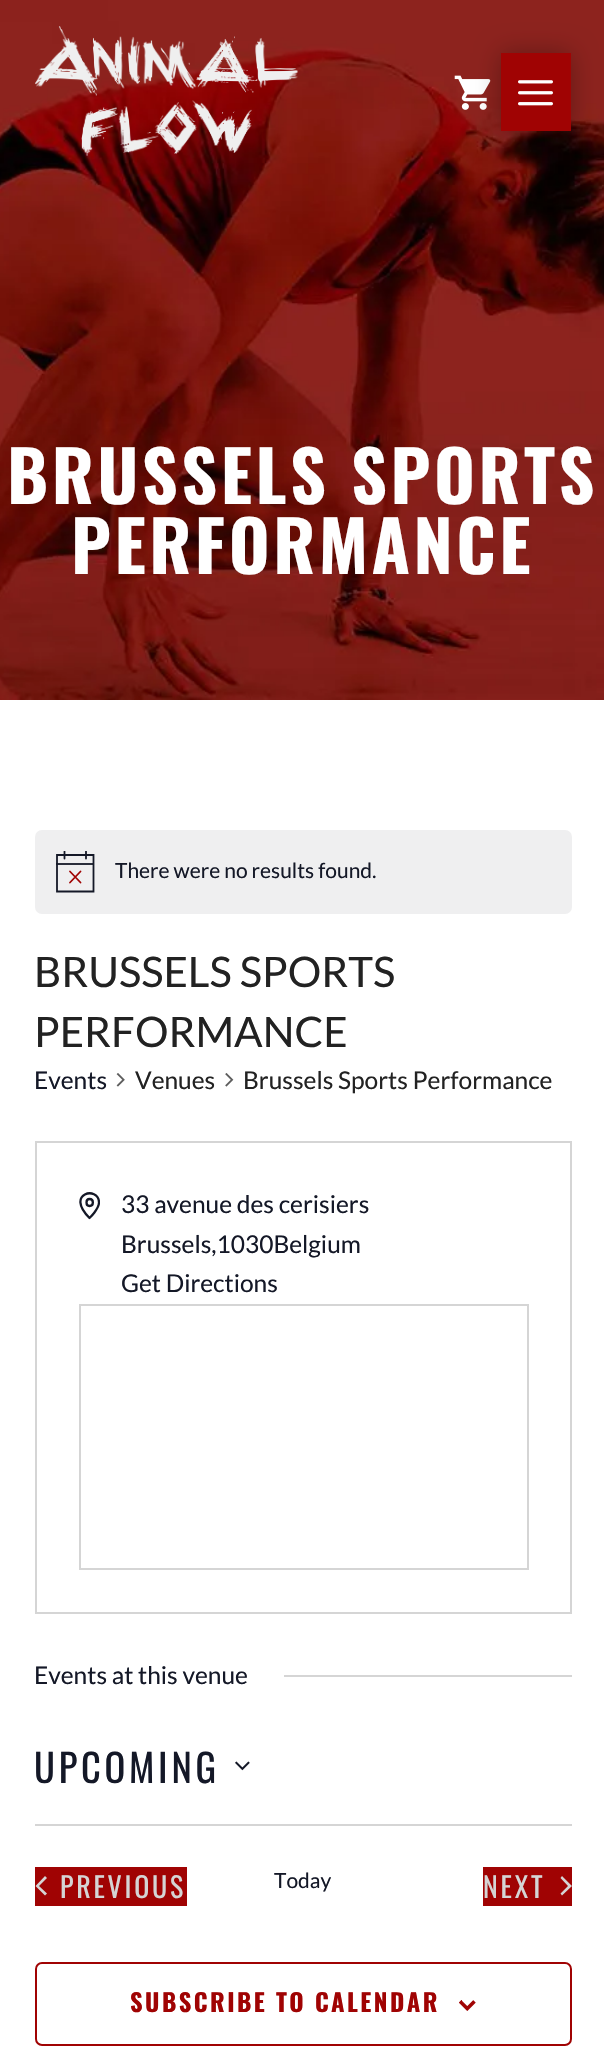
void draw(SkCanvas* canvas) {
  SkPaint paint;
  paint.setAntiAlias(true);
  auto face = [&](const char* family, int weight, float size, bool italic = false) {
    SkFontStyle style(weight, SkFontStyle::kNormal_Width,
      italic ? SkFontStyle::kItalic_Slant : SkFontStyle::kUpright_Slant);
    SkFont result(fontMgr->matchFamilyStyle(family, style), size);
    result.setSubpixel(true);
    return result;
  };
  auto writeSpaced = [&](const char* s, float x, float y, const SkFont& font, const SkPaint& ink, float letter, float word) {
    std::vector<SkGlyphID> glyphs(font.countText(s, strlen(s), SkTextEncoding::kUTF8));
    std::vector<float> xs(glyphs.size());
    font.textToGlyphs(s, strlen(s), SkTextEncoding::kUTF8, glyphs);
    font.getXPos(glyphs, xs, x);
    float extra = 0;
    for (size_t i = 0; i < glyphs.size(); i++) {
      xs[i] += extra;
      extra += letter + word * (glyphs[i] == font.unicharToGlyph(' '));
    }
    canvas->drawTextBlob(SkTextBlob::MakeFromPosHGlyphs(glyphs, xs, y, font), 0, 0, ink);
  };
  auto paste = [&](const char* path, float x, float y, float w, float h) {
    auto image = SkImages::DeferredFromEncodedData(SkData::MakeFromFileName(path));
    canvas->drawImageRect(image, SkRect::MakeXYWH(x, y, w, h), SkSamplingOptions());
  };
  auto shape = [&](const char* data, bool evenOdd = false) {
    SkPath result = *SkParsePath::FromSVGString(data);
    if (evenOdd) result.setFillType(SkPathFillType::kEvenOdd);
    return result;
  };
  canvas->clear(0xffffffff);
  paste("img/4.png", 0, 0, 604, 700);
  paste("img/1.png", 35, 26, 263, 130);
  paste("img/3.png", 454, 75, 37, 35);
  paint.setColor(0x4d000000);
  paint.setMaskFilter(SkMaskFilter::MakeBlur(kNormal_SkBlurStyle, 13));
  canvas->drawRect(SkRect::MakeXYWH(501, 53, 70, 78), paint);
  paint.setMaskFilter(nullptr);
  paint.setColor(0xffa00303);
  canvas->drawRect(SkRect::MakeXYWH(501, 53, 70, 78), paint);
  paste("img/2.png", 518, 80, 35, 26);
  paint.setColor(0xffefeff0);
  canvas->drawRoundRect(SkRect::MakeXYWH(35, 830, 537, 84), 7, 7, paint);
  paint.setStroke(true);
  paint.setStrokeWidth(1.8f);
  paint.setColor(0xff141827);
  canvas->drawPath(shape("M57 855H93.5V891.5H57Z"), paint);
  paint.setStrokeCap(SkPaint::kRound_Cap);
  paint.setColor(0xffa00303);
  canvas->drawPath(shape("M70 871.5L80.5 882.5M80.5 871.5L70 882.5"), paint);
  canvas->save();
  canvas->clipRect(SkRect::MakeXYWH(56, 851, 39, 42));
  paint.setColor(0xff141827);
  canvas->drawPath(shape("M64.5 851.5V858.5M86 851.5V858.5"), paint);
  canvas->restore();
  paint.setStroke(false);
  paint.setColor(0xe6141827);
  canvas->drawRect(SkRect::MakeXYWH(56, 863, 38, 2), paint);
  paste("img/5.png", 116, 1073, 9, 14);
  paste("img/6.png", 225, 1073, 9, 14);
  paint.setStroke(true);
  paint.setStrokeWidth(2);
  paint.setStrokeCap(SkPaint::kButt_Cap);
  paint.setColor(0xffd5d5d5);
  canvas->drawRect(SkRect::MakeXYWH(36, 1142, 535, 471), paint);
  canvas->save();
  canvas->clipRect(SkRect::MakeXYWH(79, 1192, 21, 28));
  paint.setStrokeWidth(2.3f);
  paint.setStrokeCap(SkPaint::kRound_Cap);
  paint.setStrokeJoin(SkPaint::kRound_Join);
  paint.setColor(0xff141827);
  canvas->drawPath(shape("M99 1202.5C99 1209 89.5 1218 89.5 1218C64.5 1193 99 1185.5 99 1202.5Z"), paint);
  canvas->restore();
  canvas->drawPath(shape("M89.5 1206C94 1206 94 1199 89.5 1199C85.5 1199 85.5 1206 89.5 1206Z"), paint);
  paint.setStrokeWidth(2);
  paint.setStrokeCap(SkPaint::kButt_Cap);
  paint.setStrokeJoin(SkPaint::kMiter_Join);
  paint.setColor(0xffd5d5d5);
  canvas->drawRect(SkRect::MakeXYWH(80, 1305, 448, 264), paint);
  paint.setStroke(false);
  canvas->drawRect(SkRect::MakeXYWH(284, 1675, 288, 2), paint);
  paste("img/7.png", 235, 1761, 15, 10);
  canvas->drawRect(SkRect::MakeXYWH(35, 1824, 537, 2), paint);
  paint.setColor(0xffa00303);
  canvas->drawRect(SkRect::MakeXYWH(35, 1867, 152, 39), paint);
  paint.setColor(0xffd5d5d5);
  canvas->drawPath(shape("M47 1893.5L45 1895.5L35.5 1886L45 1876L47 1878L39 1886Z"), paint);
  paint.setColor(0xffa00303);
  canvas->drawRect(SkRect::MakeXYWH(483, 1867, 89, 39), paint);
  paint.setColor(0xffd5d5d5);
  canvas->drawPath(shape("M560.5 1878L562 1876L572 1886L562 1895.5L560.5 1893.5L568 1886Z"), paint);
  paint.setStroke(true);
  paint.setColor(0xffa00303);
  canvas->drawRoundRect(SkRect::MakeXYWH(36, 1963, 535, 82), 6, 6, paint);
  paste("img/8.png", 459, 2000, 17, 11);
  auto f0 = face("Oswald", 700, 70);
  paint.setStroke(false);
  paint.setColor(0xffffffff);
  writeSpaced("BRUSSELS SPORTS", 7, 504, f0, paint, 3.5f, 0);
  writeSpaced("PERFORMANCE", 71, 574, f0, paint, 3.5f, 0);
  auto f1 = face("Lato", 400, 21);
  paint.setColor(0xff141827);
  canvas->drawString("There were no results found.", 115, 878, f1, paint);
  auto f2 = face("Lato", 400, 42);
  paint.setColor(0xff222222);
  canvas->drawString("BRUSSELS SPORTS", 34, 987, f2, paint);
  canvas->drawString("PERFORMANCE", 34, 1047, f2, paint);
  auto f3 = face("Lato", 400, 24.5f);
  paint.setColor(0xff141827);
  canvas->drawString("Events", 34, 1089, f3, paint);
  paint.setColor(0xff222222);
  canvas->drawString("Venues", 135, 1089, f3, paint);
  canvas->drawString("Brussels Sports Performance", 243, 1089, f3, paint);
  paint.setColor(0xff141827);
  {
    const struct { const char* s; float x, y; } items[] = {
      {"33 avenue des cerisiers", 121, 1213},
      {"Brussels,1030Belgium", 121, 1253},
      {"Get Directions", 121, 1292},
      {"Events at this venue", 34, 1684},
    };
    for (auto [s, x, y] : items) {
      canvas->drawString(s, x, y, f3, paint);
    }
  }
  auto f4 = face("Oswald", 400, 38.5f);
  writeSpaced("UPCOMING", 34, 1783, f4, paint, 3.75f, 0);
  auto f5 = face("Oswald", 400, 28);
  paint.setColor(0xffd5d5d5);
  writeSpaced("PREVIOUS", 60, 1898, f5, paint, 2.75f, 0);
  paint.setColor(0xff141827);
  canvas->drawString("Today", 274, 1888, f1, paint);
  paint.setColor(0xffd5d5d5);
  writeSpaced("NEXT", 483, 1898, f5, paint, 2.75f, 0);
  auto f6 = face("Oswald", 700, 24.5f);
  paint.setColor(0xffa00303);
  writeSpaced("SUBSCRIBE TO CALENDAR", 130, 2012, f6, paint, 2.45f, 0);
}
